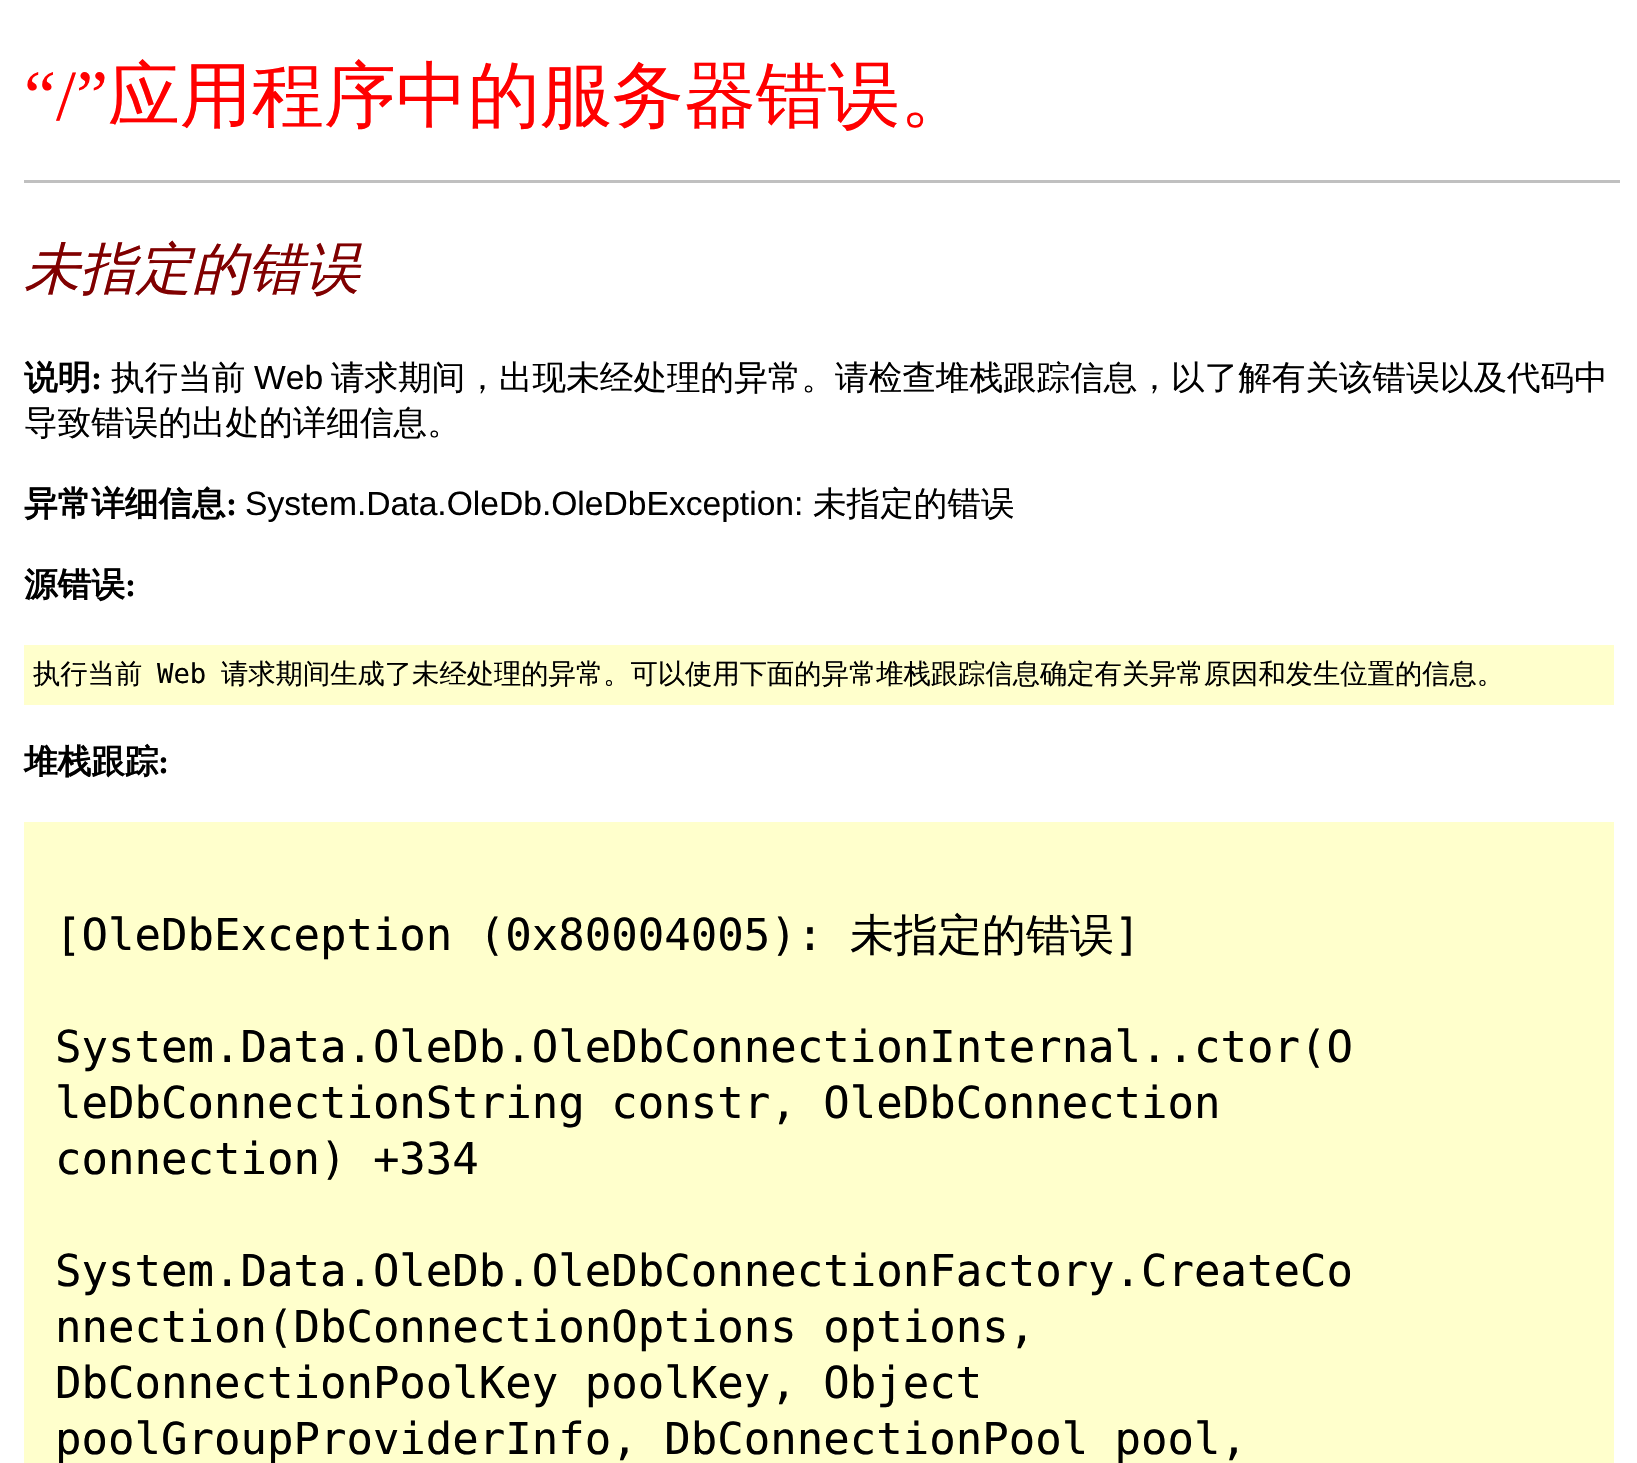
void draw(SkCanvas* canvas) {
  SkPaint paint;
  paint.setAntiAlias(true);
  auto face = [&](const char* family, int weight, float size, bool italic = false) {
    SkFontStyle style(weight, SkFontStyle::kNormal_Width,
      italic ? SkFontStyle::kItalic_Slant : SkFontStyle::kUpright_Slant);
    SkFont result(fontMgr->matchFamilyStyle(family, style), size);
    result.setSubpixel(true);
    return result;
  };
  canvas->clear(0xffffffff);
  {
    const struct { float x, y, w, h; SkColor color; } items[] = {
      {24, 180, 1596, 3, 0xffc0c0c0},
      {24, 645, 1590, 60, 0xffffffcc},
      {24, 822, 1590, 641, 0xffffffcc},
    };
    for (auto [x, y, w, h, color] : items) {
      paint.setColor(color);
      canvas->drawRect(SkRect::MakeXYWH(x, y, w, h), paint);
    }
  }
  auto f0 = face("Liberation Serif", 400, 72);
  paint.setColor(0xffff0000);
  canvas->drawString("“/”", 24, 120, f0, paint);
  auto f1 = face("WenQuanYi Zen Hei", 500, 72);
  canvas->drawString("应用程序中的服务器错误。", 108, 120, f1, paint);
  auto f2 = face("WenQuanYi Zen Hei", 500, 56, true);
  paint.setColor(0xff800000);
  canvas->drawString("未指定的错误", 24, 288, f2, paint);
  auto f3 = face("WenQuanYi Zen Hei", 700, 33.6f);
  paint.setColor(0xff000000);
  canvas->drawString("说明", 24, 389, f3, paint);
  auto f4 = face("Liberation Serif", 700, 33.6f);
  canvas->drawString(":", 91, 389, f4, paint);
  auto f5 = face("WenQuanYi Zen Hei", 500, 33.6f);
  canvas->drawString("执行当前", 111, 389, f5, paint);
  auto f6 = face("Liberation Sans", 400, 33.6f);
  canvas->drawString("Web", 254, 389, f6, paint);
  canvas->drawString("请求期间，出现未经处理的异常。请检查堆栈跟踪信息，以了解有关该错误以及代码中", 331, 389, f5, paint);
  canvas->drawString("导致错误的出处的详细信息。", 24, 434, f5, paint);
  canvas->drawString("异常详细信息", 24, 515, f3, paint);
  canvas->drawString(":", 226, 515, f4, paint);
  canvas->drawString("System.Data.OleDb.OleDbException:", 245, 515, f6, paint);
  canvas->drawString("未指定的错误", 813, 515, f5, paint);
  canvas->drawString("源错误", 24, 596, f3, paint);
  canvas->drawString(":", 125, 596, f4, paint);
  auto f7 = face("WenQuanYi Zen Hei", 500, 27.3f);
  canvas->drawString("执行当前", 33, 683, f7, paint);
  auto f8 = face("DejaVu Sans Mono", 400, 27.3f);
  canvas->drawString("Web", 157, 683, f8, paint);
  canvas->drawString("请求期间生成了未经处理的异常。可以使用下面的异常堆栈跟踪信息确定有关异常原因和发生位置的信息。", 221, 683, f7, paint);
  canvas->drawString("堆栈跟踪", 24, 773, f3, paint);
  canvas->drawString(":", 158, 773, f4, paint);
  auto f9 = face("DejaVu Sans Mono", 400, 44);
  canvas->drawString("[OleDbException (0x80004005):", 55, 950, f9, paint);
  auto f10 = face("WenQuanYi Zen Hei", 500, 44);
  canvas->drawString("未指定的错误", 850, 950, f10, paint);
  {
    const struct { const char* s; float x, y; } items[] = {
      {"]", 1114, 950},
      {"System.Data.OleDb.OleDbConnectionInternal..ctor(O", 55, 1062},
      {"leDbConnectionString constr, OleDbConnection", 55, 1118},
      {"connection) +334", 55, 1174},
      {"System.Data.OleDb.OleDbConnectionFactory.CreateCo", 55, 1286},
      {"nnection(DbConnectionOptions options,", 55, 1342},
      {"DbConnectionPoolKey poolKey, Object", 55, 1398},
      {"poolGroupProviderInfo, DbConnectionPool pool,", 55, 1454},
    };
    for (auto [s, x, y] : items) {
      canvas->drawString(s, x, y, f9, paint);
    }
  }
}
